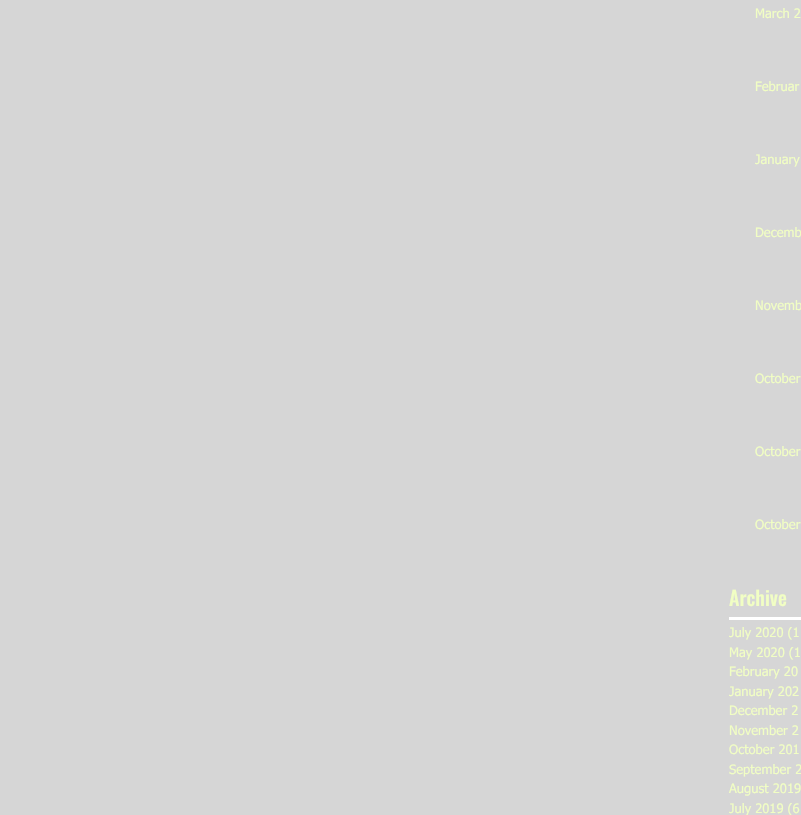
void draw(SkCanvas* canvas) {
  SkPaint paint;
  paint.setAntiAlias(true);
  auto face = [&](const char* family, int weight, float size, bool italic = false) {
    SkFontStyle style(weight, SkFontStyle::kNormal_Width,
      italic ? SkFontStyle::kItalic_Slant : SkFontStyle::kUpright_Slant);
    SkFont result(fontMgr->matchFamilyStyle(family, style), size);
    result.setSubpixel(true);
    return result;
  };
  canvas->clear(0xffd6d6d6);
  paint.setColor(0xffffffff);
  canvas->drawRect(SkRect::MakeXYWH(729, 617, 72, 3), paint);
  auto f0 = face("tahoma", 400, 13);
  paint.setColor(0xfff1fec4);
  {
    const struct { const char* s; float x, y; } items[] = {
      {"March 2", 755, 18},
      {"Februar", 755, 91},
      {"January", 755, 164},
      {"Decemb", 755, 237},
      {"Novemb", 755, 310},
      {"October", 755, 383},
      {"October", 755, 456},
      {"October", 755, 529},
    };
    for (auto [s, x, y] : items) {
      canvas->drawString(s, x, y, f0, paint);
    }
  }
  auto f1 = face("Oswald", 500, 20);
  canvas->drawString("Archive", 729, 606, f1, paint);
  {
    const struct { const char* s; float x, y; } items[] = {
      {"July 2020 (1", 729, 637},
      {"May 2020 (1", 729, 657},
      {"February 20", 729, 676},
      {"January 202", 729, 696},
      {"December 2", 729, 715},
      {"November 2", 729, 735},
      {"October 201", 729, 754},
      {"September 2", 729, 774},
      {"August 2019", 729, 793},
      {"July 2019 (6", 729, 813},
    };
    for (auto [s, x, y] : items) {
      canvas->drawString(s, x, y, f0, paint);
    }
  }
}
